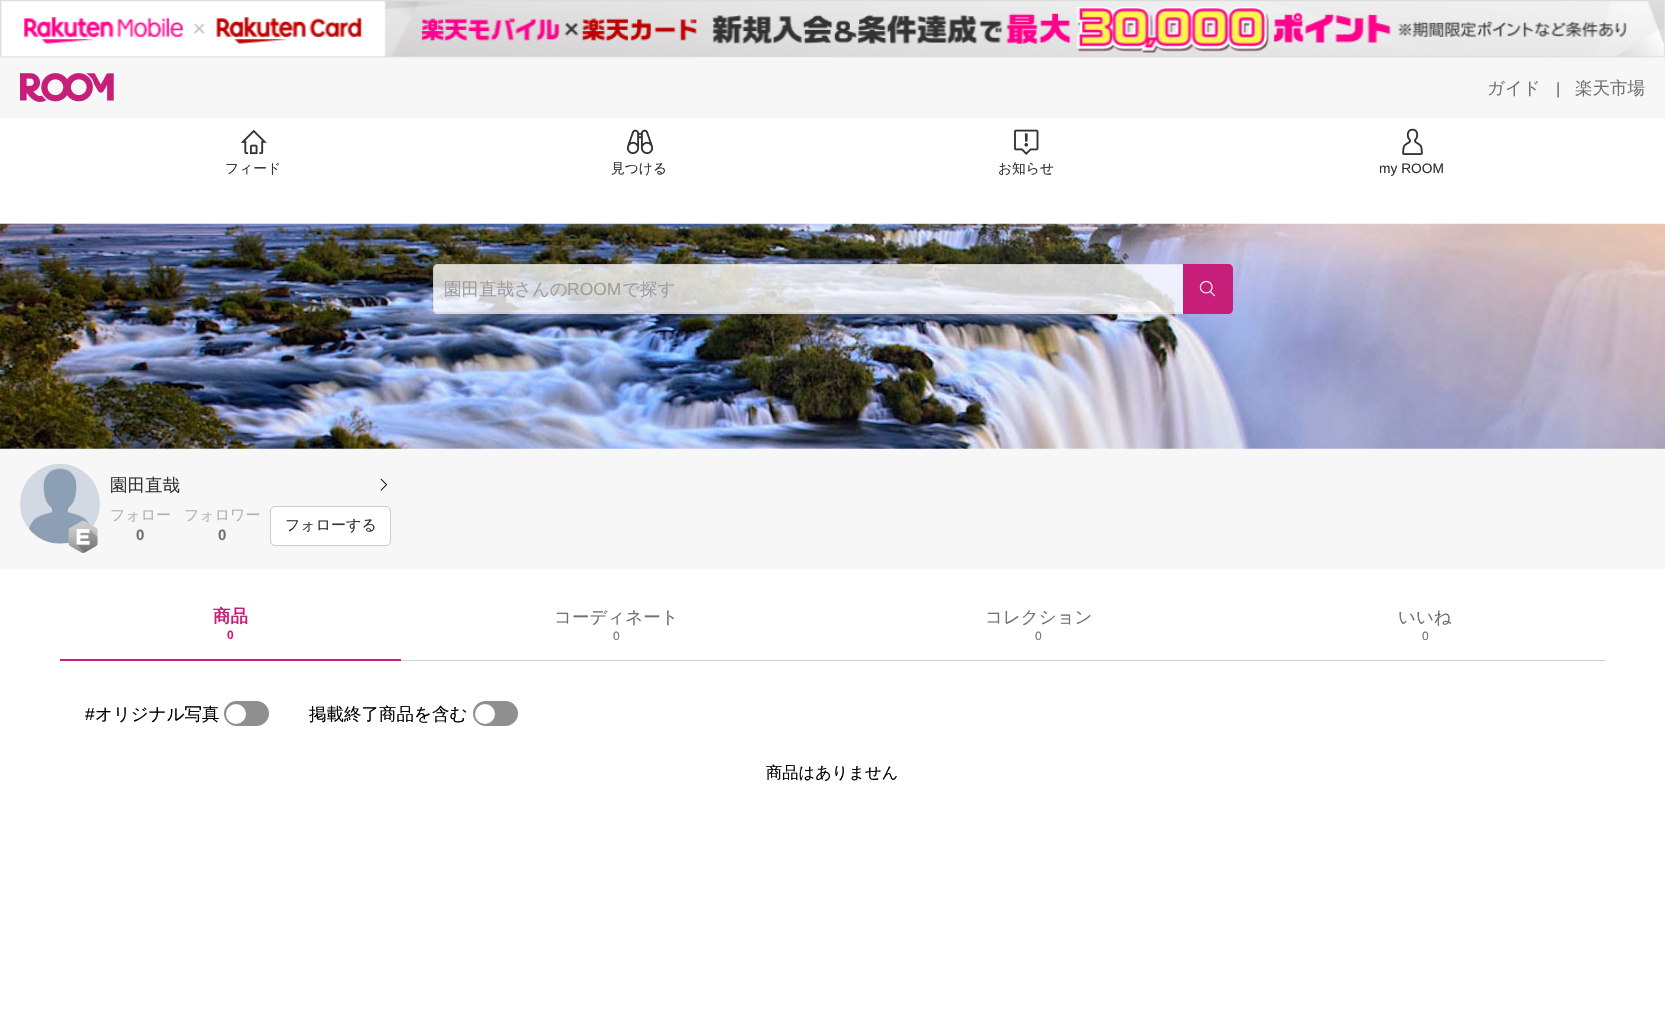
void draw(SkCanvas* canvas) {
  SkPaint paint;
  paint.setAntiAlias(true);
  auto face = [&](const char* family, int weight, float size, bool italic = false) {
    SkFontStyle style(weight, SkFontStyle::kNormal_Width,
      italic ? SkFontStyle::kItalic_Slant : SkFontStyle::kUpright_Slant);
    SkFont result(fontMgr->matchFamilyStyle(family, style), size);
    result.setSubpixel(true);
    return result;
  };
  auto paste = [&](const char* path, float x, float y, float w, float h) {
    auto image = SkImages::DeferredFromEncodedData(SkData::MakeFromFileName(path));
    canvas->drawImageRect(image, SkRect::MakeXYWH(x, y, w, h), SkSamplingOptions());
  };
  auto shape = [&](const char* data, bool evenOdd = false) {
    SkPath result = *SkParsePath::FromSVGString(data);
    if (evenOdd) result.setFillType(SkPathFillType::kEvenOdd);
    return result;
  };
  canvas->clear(0xffffffff);
  paste("img/1.png", 0, 0, 1665, 58);
  paint.setColor(0xfff7f7f7);
  canvas->drawRect(SkRect::MakeXYWH(0, 58, 1665, 60), paint);
  paste("img/2.png", 20, 73, 94, 29);
  paste("img/3.png", 240, 129, 27, 26);
  paste("img/4.png", 626, 129, 28, 26);
  paste("img/5.png", 1014, 129, 25, 26);
  paste("img/6.png", 1402, 128, 21, 27);
  paste("img/7.png", 0, 223, 1665, 226);
  paint.setColor(0xccffffff);
  canvas->drawPath(shape("M438 264H1183V314H438C435 314 433 312 433 309V269C433 266 435 264 438 264Z"), paint);
  paint.setColor(0x0f000000);
  canvas->drawPath(shape("M438 264H1182V314H438C435 314 432 312 432 309V269C432 266 435 264 438 264ZM438 265H1182V312H438C435 312 434 311 434 309V269C434 267 435 265 438 265Z", true), paint);
  paint.setColor(0xffc61e79);
  canvas->drawPath(shape("M1183 264H1228C1231 264 1233 266 1233 269V309C1233 312 1231 314 1228 314H1183Z"), paint);
  paste("img/8.png", 1199, 280, 17, 17);
  paint.setColor(0xfff7f7f7);
  canvas->drawRect(SkRect::MakeXYWH(0, 449, 1665, 120), paint);
  paste("img/9.png", 20, 464, 80, 80);
  paste("img/10.png", 68, 520, 30, 33);
  paste("img/11.png", 380, 478, 8, 13);
  paint.setColor(0xffffffff);
  canvas->drawRoundRect(SkRect::MakeXYWH(270, 506, 121, 40), 5, 5, paint);
  paint.setStroke(true);
  paint.setStrokeWidth(1);
  paint.setColor(0x33000000);
  canvas->drawRoundRect(SkRect::MakeXYWH(270.5f, 506.5f, 120, 39), 4.5f, 4.5f, paint);
  paint.setStroke(false);
  paint.setColor(0xffc61e79);
  canvas->drawRect(SkRect::MakeXYWH(60, 659, 341, 2), paint);
  paint.setColor(0xffd1d1d1);
  canvas->drawRect(SkRect::MakeXYWH(401, 660, 1204, 1), paint);
  paint.setColor(0xff8f8f8f);
  canvas->drawRoundRect(SkRect::MakeXYWH(225.5f, 702.5f, 42, 22), 11, 11, paint);
  paint.setStroke(true);
  paint.setStrokeWidth(3);
  canvas->drawRoundRect(SkRect::MakeXYWH(225.5f, 702.5f, 42, 22), 11, 11, paint);
  paint.setStroke(false);
  paint.setColor(0xffffffff);
  canvas->drawCircle(236, 714, 10, paint);
  paint.setColor(0xff8f8f8f);
  canvas->drawRoundRect(SkRect::MakeXYWH(474.5f, 702.5f, 42, 22), 11, 11, paint);
  paint.setStroke(true);
  canvas->drawRoundRect(SkRect::MakeXYWH(474.5f, 702.5f, 42, 22), 11, 11, paint);
  paint.setStroke(false);
  paint.setColor(0xffffffff);
  canvas->drawCircle(485, 714, 10, paint);
  auto f0 = face("WenQuanYi Zen Hei", 500, 17.5f);
  paint.setColor(0xff717171);
  canvas->drawString("ガイド", 1487, 94, f0, paint);
  auto f1 = face("Liberation Sans", 400, 16.25f);
  canvas->drawString("|", 1556, 94, f1, paint);
  canvas->drawString("楽天市場", 1575, 94, f0, paint);
  auto f2 = face("WenQuanYi Zen Hei", 500, 13.75f);
  paint.setColor(0xff333333);
  {
    const struct { const char* s; float x, y; } items[] = {
      {"フィード", 225, 173},
      {"見つける", 611, 173},
      {"お知らせ", 998, 173},
    };
    for (auto [s, x, y] : items) {
      canvas->drawString(s, x, y, f2, paint);
    }
  }
  auto f3 = face("Liberation Sans", 400, 13.75f);
  canvas->drawString("my ROOM", 1379, 173, f3, paint);
  paint.setColor(0xff9e9e9f);
  canvas->drawString("園田直哉さんの", 444, 295, f0, paint);
  auto f4 = face("Liberation Sans", 400, 17.5f);
  canvas->drawString("ROOM", 567, 295, f4, paint);
  canvas->drawString("で探す", 622, 295, f0, paint);
  paint.setColor(0xff333333);
  canvas->drawString("園田直哉", 110, 491, f0, paint);
  auto f5 = face("WenQuanYi Zen Hei", 500, 15);
  paint.setColor(0xffb2b2b2);
  canvas->drawString("フォロー", 110, 520, f5, paint);
  auto f6 = face("Liberation Sans", 700, 15);
  paint.setColor(0xff717171);
  canvas->drawString("0", 136, 540, f6, paint);
  paint.setColor(0xffb2b2b2);
  canvas->drawString("フォロワー", 184, 520, f5, paint);
  paint.setColor(0xff717171);
  canvas->drawString("0", 218, 540, f6, paint);
  paint.setColor(0xff333333);
  canvas->drawString("フォローする", 285, 530, f5, paint);
  auto f7 = face("WenQuanYi Zen Hei", 700, 17.5f);
  paint.setColor(0xffc61e79);
  canvas->drawString("商品", 213, 622, f7, paint);
  auto f8 = face("Liberation Sans", 700, 12);
  canvas->drawString("0", 227, 639, f8, paint);
  paint.setColor(0xff717171);
  canvas->drawString("コーディネート", 554, 623, f0, paint);
  auto f9 = face("Liberation Sans", 400, 12);
  canvas->drawString("0", 613, 640, f9, paint);
  canvas->drawString("コレクション", 985, 623, f0, paint);
  canvas->drawString("0", 1035, 640, f9, paint);
  canvas->drawString("いいね", 1398, 623, f0, paint);
  canvas->drawString("0", 1422, 640, f9, paint);
  paint.setColor(0xff000000);
  canvas->drawString("#", 85, 720, f4, paint);
  canvas->drawString("オリジナル写真", 95, 720, f0, paint);
  canvas->drawString("掲載終了商品を含む", 309, 720, f0, paint);
  auto f10 = face("WenQuanYi Zen Hei", 500, 16.25f);
  canvas->drawString("商品はありません", 766, 778, f10, paint);
}
